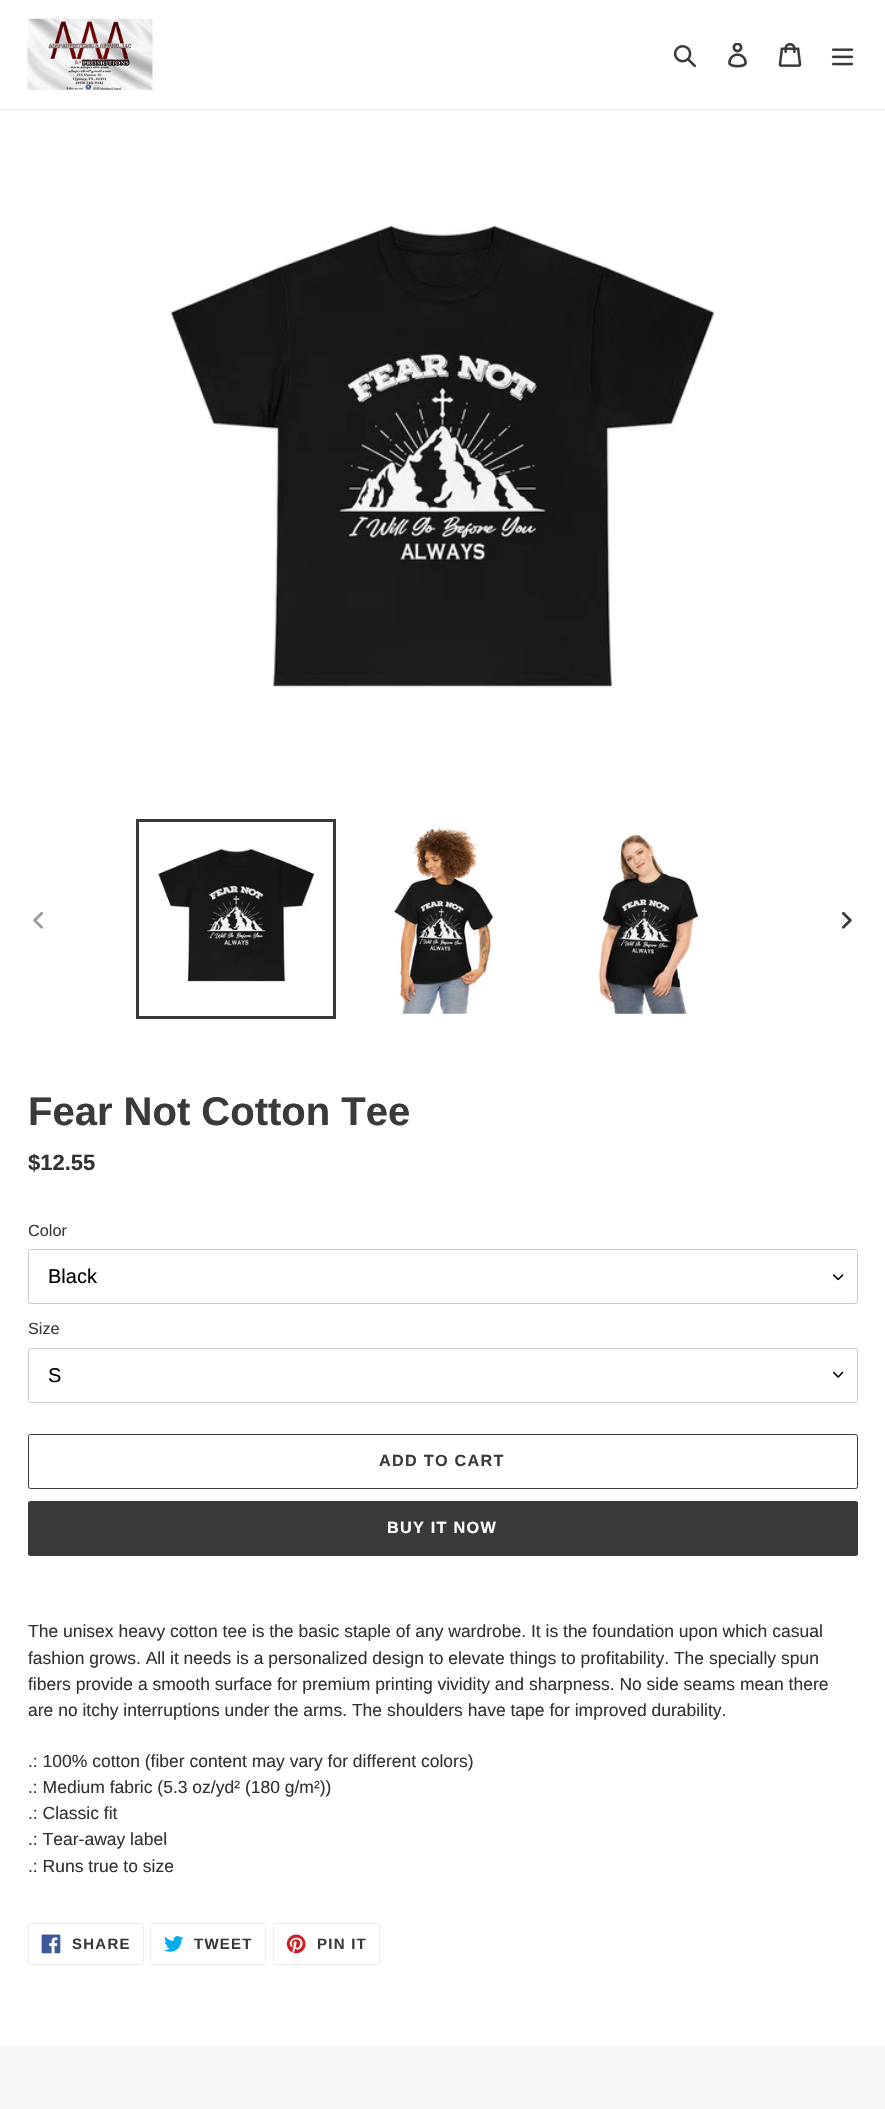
void draw(SkCanvas* canvas) {
  SkPaint paint;
  paint.setAntiAlias(true);
  auto face = [&](const char* family, int weight, float size, bool italic = false) {
    SkFontStyle style(weight, SkFontStyle::kNormal_Width,
      italic ? SkFontStyle::kItalic_Slant : SkFontStyle::kUpright_Slant);
    SkFont result(fontMgr->matchFamilyStyle(family, style), size);
    result.setSubpixel(true);
    return result;
  };
  auto writeSpaced = [&](const char* s, float x, float y, const SkFont& font, const SkPaint& ink, float letter, float word) {
    std::vector<SkGlyphID> glyphs(font.countText(s, strlen(s), SkTextEncoding::kUTF8));
    std::vector<float> xs(glyphs.size());
    font.textToGlyphs(s, strlen(s), SkTextEncoding::kUTF8, glyphs);
    font.getXPos(glyphs, xs, x);
    float extra = 0;
    for (size_t i = 0; i < glyphs.size(); i++) {
      xs[i] += extra;
      extra += letter + word * (glyphs[i] == font.unicharToGlyph(' '));
    }
    canvas->drawTextBlob(SkTextBlob::MakeFromPosHGlyphs(glyphs, xs, y, font), 0, 0, ink);
  };
  auto paste = [&](const char* path, float x, float y, float w, float h) {
    auto image = SkImages::DeferredFromEncodedData(SkData::MakeFromFileName(path));
    canvas->drawImageRect(image, SkRect::MakeXYWH(x, y, w, h), SkSamplingOptions());
  };
  canvas->clear(0xffffffff);
  paint.setColor(0xffebebeb);
  canvas->drawRect(SkRect::MakeXYWH(0, 109, 885, 1), paint);
  paste("img/1.png", 27, 18, 126, 72);
  paste("img/2.png", 673, 45, 23, 23);
  paste("img/3.png", 728, 43, 19, 25);
  paste("img/4.png", 778, 43, 24, 24);
  paste("img/5.png", 831, 48, 23, 18);
  paste("img/6.png", 170, 225, 545, 463);
  paste("img/7.png", 33, 912, 10, 17);
  paint.setStroke(true);
  paint.setStrokeWidth(3);
  paint.setColor(0xff3a3a3a);
  canvas->drawRect(SkRect::MakeXYWH(137.5f, 820.5f, 197, 197), paint);
  paste("img/8.png", 158, 848, 156, 134);
  paste("img/9.png", 394, 824, 100, 190);
  paste("img/10.png", 596, 831, 103, 183);
  paste("img/11.png", 841, 911, 11, 18);
  paste("img/12.png", 833, 1274, 11, 7);
  paint.setStrokeWidth(1);
  paint.setColor(0xffcccccc);
  canvas->drawRoundRect(SkRect::MakeXYWH(28.5f, 1249.5f, 829, 54), 2, 2, paint);
  paste("img/13.png", 833, 1371, 11, 7);
  canvas->drawRoundRect(SkRect::MakeXYWH(28.5f, 1348.5f, 829, 54), 2, 2, paint);
  paint.setColor(0xff3a3a3a);
  canvas->drawRoundRect(SkRect::MakeXYWH(28.5f, 1434.5f, 829, 54), 2, 2, paint);
  paint.setStroke(false);
  canvas->drawRoundRect(SkRect::MakeXYWH(28, 1501, 830, 55), 2.5f, 2.5f, paint);
  paint.setStroke(true);
  paint.setColor(0xffebebeb);
  canvas->drawRoundRect(SkRect::MakeXYWH(28.5f, 1923.5f, 115, 41), 2, 2, paint);
  paste("img/14.png", 41, 1934, 20, 20);
  canvas->drawRoundRect(SkRect::MakeXYWH(150.5f, 1923.5f, 115, 41), 2, 2, paint);
  paste("img/15.png", 164, 1936, 20, 16);
  canvas->drawRoundRect(SkRect::MakeXYWH(273.5f, 1923.5f, 106, 41), 2, 2, paint);
  paste("img/16.png", 286, 1934, 20, 20);
  paint.setStroke(false);
  paint.setColor(0xfff6f6f6);
  canvas->drawRect(SkRect::MakeXYWH(0, 2046, 885, 63), paint);
  auto f0 = face("Liberation Sans", 700, 40);
  paint.setColor(0xff3a3a3a);
  canvas->drawString("Fear Not Cotton Tee", 28, 1125, f0, paint);
  auto f1 = face("Liberation Sans", 700, 22);
  paint.setColor(0xff333232);
  canvas->drawString("$12.55", 28, 1170, f1, paint);
  auto f2 = face("Liberation Sans", 400, 16.25f);
  paint.setColor(0xff3a3a3a);
  canvas->drawString("Color", 28, 1236, f2, paint);
  auto f3 = face("Liberation Sans", 400, 20);
  paint.setColor(0xff000000);
  canvas->drawString("Black", 48, 1283, f3, paint);
  paint.setColor(0xff3a3a3a);
  canvas->drawString("Size", 28, 1334, f2, paint);
  paint.setColor(0xff000000);
  canvas->drawString("S", 48, 1382, f3, paint);
  auto f4 = face("Liberation Sans", 700, 16.25f);
  paint.setColor(0xff3a3a3a);
  writeSpaced("ADD TO CART", 379, 1466, f4, paint, 1.25f, 0);
  paint.setColor(0xffffffff);
  writeSpaced("BUY IT NOW", 387, 1533, f4, paint, 1.25f, 0);
  auto f5 = face("Liberation Sans", 400, 17.5f);
  paint.setColor(0xff333232);
  {
    const struct { const char* s; float x, y; } items[] = {
      {"The unisex heavy cotton tee is the basic staple of any wardrobe. It is the foundation upon which casual", 28, 1637},
      {"fashion grows. All it needs is a personalized design to elevate things to profitability. The specially spun", 28, 1664},
      {"fibers provide a smooth surface for premium printing vividity and sharpness. No side seams mean there", 28, 1690},
      {"are no itchy interruptions under the arms. The shoulders have tape for improved durability.", 28, 1716},
      {".: 100% cotton (fiber content may vary for different colors)", 28, 1767},
      {".: Medium fabric (5.3 oz/yd² (180 g/m²))", 28, 1793},
      {".: Classic fit", 28, 1819},
      {".: Tear-away label", 28, 1845},
      {".: Runs true to size", 28, 1872},
    };
    for (auto [s, x, y] : items) {
      canvas->drawString(s, x, y, f5, paint);
    }
  }
  auto f6 = face("Liberation Sans", 700, 15);
  paint.setColor(0xff3a3a3a);
  {
    const struct { const char* s; float x, y; } items[] = {
      {"SHARE", 72, 1949},
      {"TWEET", 194, 1949},
      {"PIN IT", 317, 1949},
    };
    for (auto [s, x, y] : items) {
      writeSpaced(s, x, y, f6, paint, 1.25f, 0);
    }
  }
}
